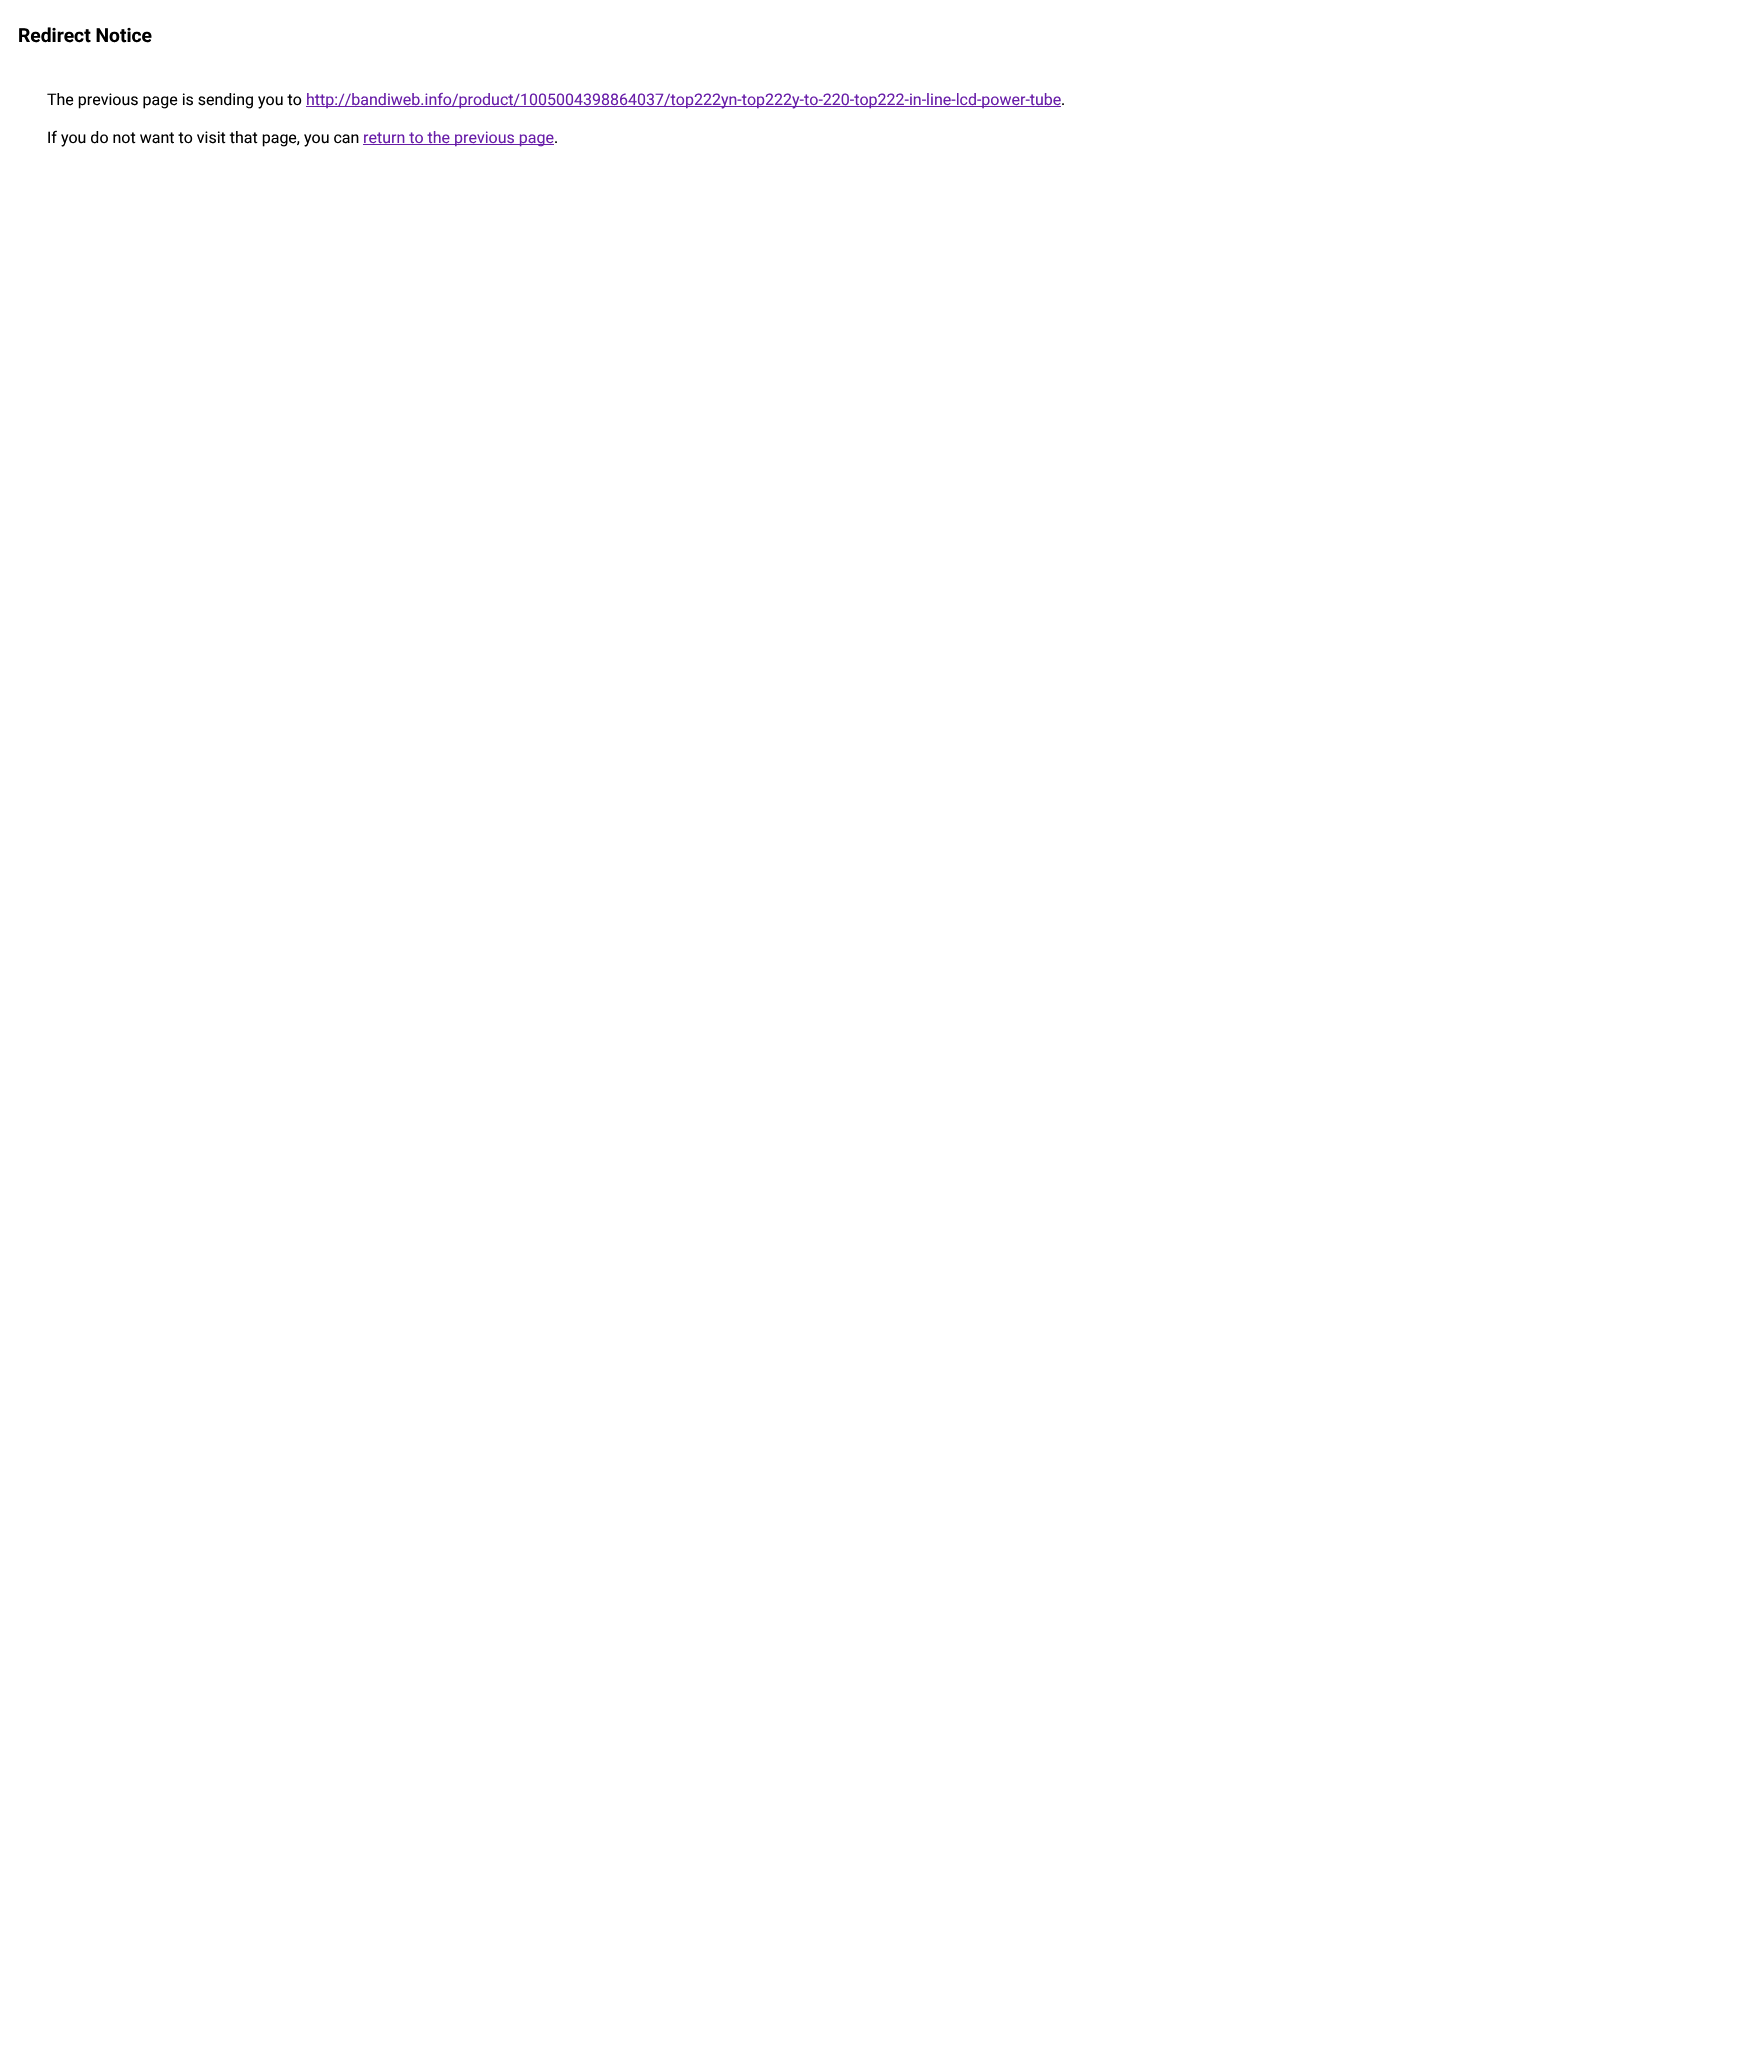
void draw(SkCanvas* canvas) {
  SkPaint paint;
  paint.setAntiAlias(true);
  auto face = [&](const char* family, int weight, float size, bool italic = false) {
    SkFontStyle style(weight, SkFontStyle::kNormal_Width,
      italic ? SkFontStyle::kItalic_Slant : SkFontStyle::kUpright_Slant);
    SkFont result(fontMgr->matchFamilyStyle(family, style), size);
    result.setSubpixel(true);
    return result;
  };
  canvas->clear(0xffffffff);
  paint.setColor(0xff681da8);
  canvas->drawRect(SkRect::MakeXYWH(306, 106, 755, 1), paint);
  canvas->drawRect(SkRect::MakeXYWH(363, 144, 191, 1), paint);
  auto f0 = face("Roboto", 700, 19.25f);
  paint.setColor(0xff000000);
  canvas->drawString("Redirect Notice", 18, 42, f0, paint);
  auto f1 = face("Roboto", 400, 16);
  canvas->drawString("The previous page is sending you to", 47, 105, f1, paint);
  paint.setColor(0xff681da8);
  canvas->drawString("http://bandiweb.info/product/1005004398864037/top222yn-top222y-to-220-top222-in-line-lcd-power-tube", 306, 105, f1, paint);
  paint.setColor(0xff000000);
  canvas->drawString(".", 1061, 105, f1, paint);
  canvas->drawString("If you do not want to visit that page, you can", 47, 143, f1, paint);
  paint.setColor(0xff681da8);
  canvas->drawString("return to the previous page", 363, 143, f1, paint);
  paint.setColor(0xff000000);
  canvas->drawString(".", 554, 143, f1, paint);
}
